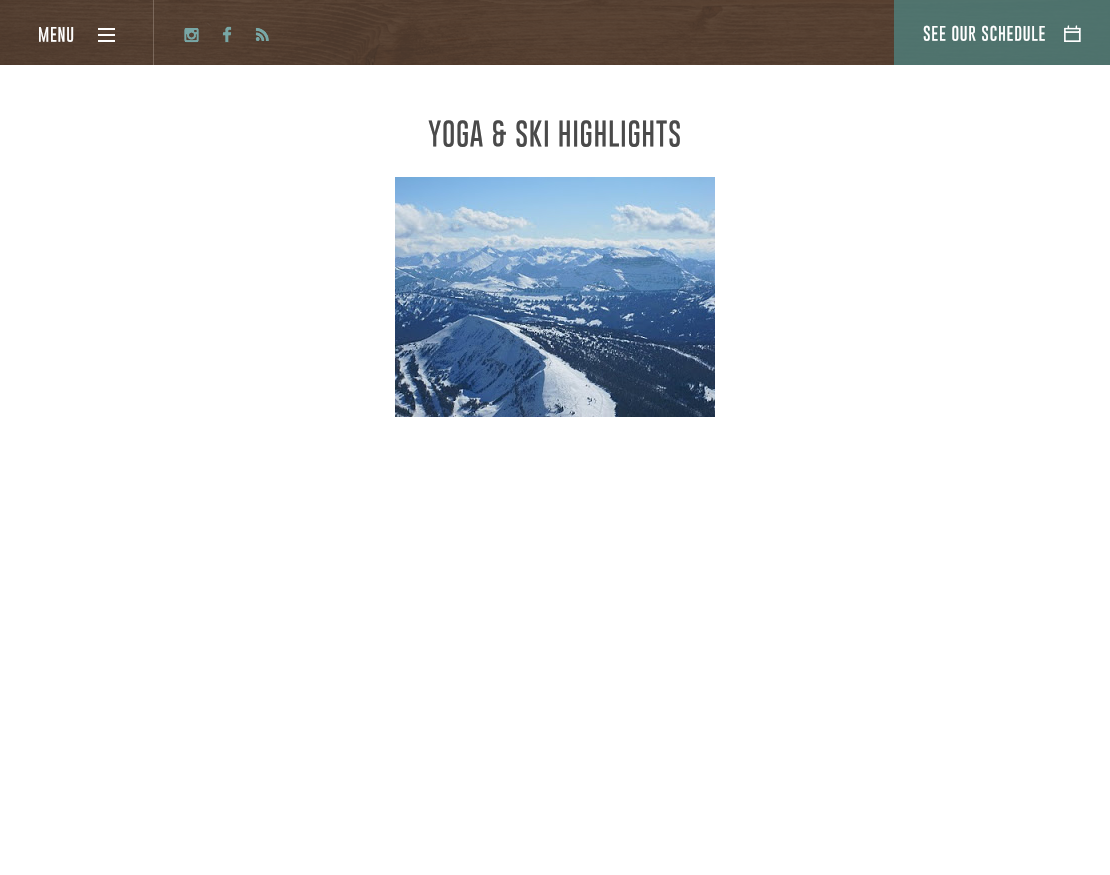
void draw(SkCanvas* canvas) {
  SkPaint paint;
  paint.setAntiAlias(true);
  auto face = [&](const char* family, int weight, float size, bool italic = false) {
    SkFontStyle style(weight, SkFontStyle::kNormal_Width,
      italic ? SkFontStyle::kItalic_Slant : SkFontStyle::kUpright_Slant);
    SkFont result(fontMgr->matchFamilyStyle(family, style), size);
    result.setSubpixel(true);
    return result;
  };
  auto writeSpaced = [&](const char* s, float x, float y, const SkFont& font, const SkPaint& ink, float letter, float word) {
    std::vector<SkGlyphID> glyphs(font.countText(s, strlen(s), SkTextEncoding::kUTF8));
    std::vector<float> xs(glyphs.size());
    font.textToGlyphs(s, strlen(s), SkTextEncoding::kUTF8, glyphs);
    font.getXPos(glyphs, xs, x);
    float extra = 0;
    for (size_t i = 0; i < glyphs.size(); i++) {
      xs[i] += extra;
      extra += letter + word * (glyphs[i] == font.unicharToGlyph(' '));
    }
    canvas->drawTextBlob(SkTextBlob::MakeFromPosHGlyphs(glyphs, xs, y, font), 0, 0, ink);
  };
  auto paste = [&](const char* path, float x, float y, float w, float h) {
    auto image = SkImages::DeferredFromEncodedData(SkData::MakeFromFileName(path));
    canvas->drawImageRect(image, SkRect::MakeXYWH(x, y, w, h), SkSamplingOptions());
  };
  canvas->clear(0xffffffff);
  paste("img/1.png", 0, 0, 1110, 65);
  {
    const struct { float x, y, w, h; SkColor color; } items[] = {
      {153, 0, 1, 65, 0x80a29185},
      {98, 28, 17, 2, 0xffffffff},
      {98, 34, 17, 2, 0xffffffff},
      {98, 40, 17, 2, 0xffffffff},
    };
    for (auto [x, y, w, h, color] : items) {
      paint.setColor(color);
      canvas->drawRect(SkRect::MakeXYWH(x, y, w, h), paint);
    }
  }
  paste("img/2.png", 184, 28, 15, 15);
  paste("img/3.png", 222, 26, 10, 17);
  paste("img/4.png", 255, 28, 14, 13);
  paint.setColor(0xbf4e8481);
  canvas->drawRect(SkRect::MakeXYWH(894, 0, 216, 65), paint);
  paste("img/5.png", 1064, 25, 17, 17);
  paste("img/6.png", 395, 177, 320, 240);
  auto f0 = face("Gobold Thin", 100, 16);
  paint.setColor(0xffffffff);
  writeSpaced("MENU", 38, 42, f0, paint, 0.75f, 0);
  writeSpaced("SEE OUR SCHEDULE", 923, 41, f0, paint, 0.75f, 0);
  auto f1 = face("Gobold Thin", 100, 28);
  paint.setColor(0xff4a4a4a);
  writeSpaced("YOGA & SKI HIGHLIGHTS", 428, 147, f1, paint, 0.6f, 0);
}
